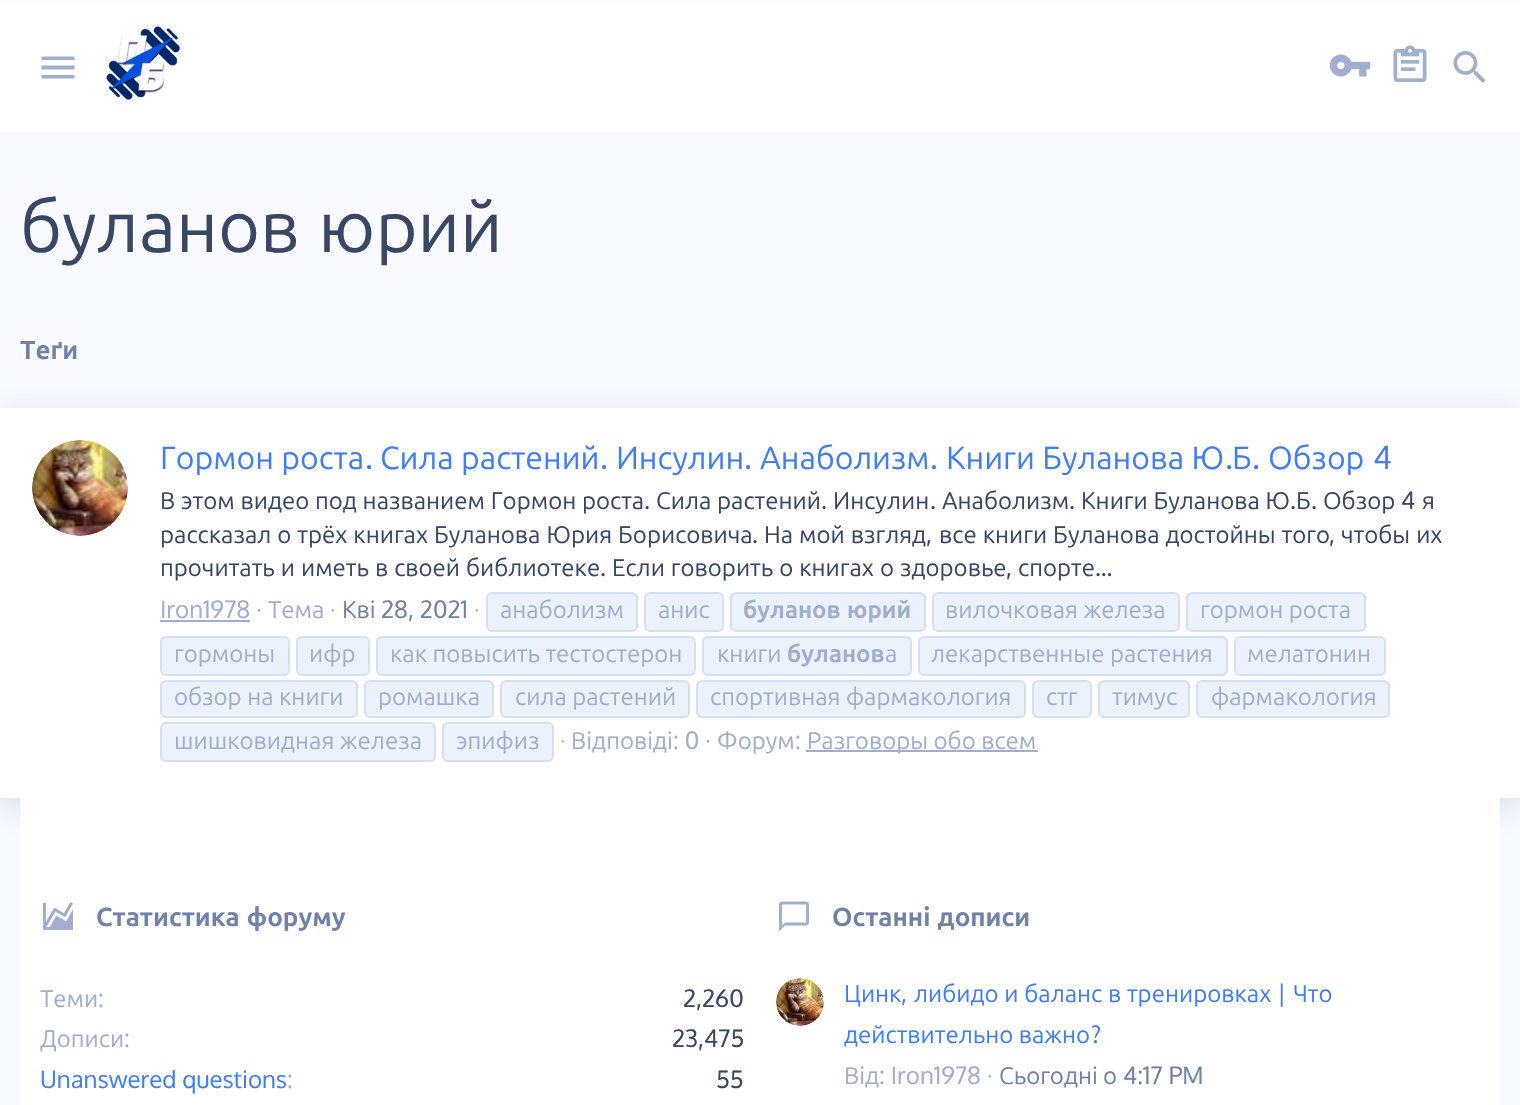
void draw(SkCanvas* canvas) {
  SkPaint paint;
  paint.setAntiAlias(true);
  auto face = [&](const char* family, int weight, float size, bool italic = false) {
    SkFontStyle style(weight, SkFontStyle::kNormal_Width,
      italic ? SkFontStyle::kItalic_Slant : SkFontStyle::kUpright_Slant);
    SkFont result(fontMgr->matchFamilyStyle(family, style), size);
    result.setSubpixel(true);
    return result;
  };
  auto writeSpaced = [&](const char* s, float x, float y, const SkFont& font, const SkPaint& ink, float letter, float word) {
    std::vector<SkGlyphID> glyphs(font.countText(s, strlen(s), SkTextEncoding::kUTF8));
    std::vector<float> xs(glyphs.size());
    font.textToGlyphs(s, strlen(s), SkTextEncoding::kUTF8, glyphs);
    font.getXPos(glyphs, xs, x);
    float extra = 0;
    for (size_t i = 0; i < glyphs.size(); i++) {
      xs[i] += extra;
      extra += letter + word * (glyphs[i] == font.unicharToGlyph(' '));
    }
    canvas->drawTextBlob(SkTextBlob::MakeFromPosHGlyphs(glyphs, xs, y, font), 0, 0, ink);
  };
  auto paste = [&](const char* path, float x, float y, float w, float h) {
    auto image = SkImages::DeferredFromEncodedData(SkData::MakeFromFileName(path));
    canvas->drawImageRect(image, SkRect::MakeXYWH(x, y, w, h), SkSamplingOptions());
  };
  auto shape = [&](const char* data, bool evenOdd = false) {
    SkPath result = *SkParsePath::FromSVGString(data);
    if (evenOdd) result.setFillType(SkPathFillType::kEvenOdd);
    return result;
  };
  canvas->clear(0xfff8faff);
  paint.setColor(0xffffffff);
  canvas->drawRect(SkRect::MakeXYWH(0, 2, 1520, 130), paint);
  paint.setColor(0xffa0afce);
  canvas->drawPath(shape("M41.5 56.5H74.5V60H41.5ZM41.5 65.5H74.5V69.5H41.5ZM41.5 75H74.5V78.5H41.5Z"), paint);
  paste("img/1.png", 106, 26, 74, 74);
  paste("img/2.png", 1329, 54, 42, 23);
  paste("img/3.png", 1393, 45, 34, 37);
  paste("img/4.png", 1453, 51, 33, 32);
  paint.setColor(0x33586a99);
  paint.setMaskFilter(SkMaskFilter::MakeBlur(kNormal_SkBlurStyle, 15));
  canvas->drawRect(SkRect::MakeXYWH(0, 416, 1520, 390), paint);
  paint.setMaskFilter(nullptr);
  paint.setColor(0xffffffff);
  canvas->drawRect(SkRect::MakeXYWH(0, 408, 1520, 390), paint);
  paste("img/5.png", 32, 440, 96, 96);
  paint.setColor(0xffecf2fb);
  canvas->drawRoundRect(SkRect::MakeXYWH(487, 593, 150, 38), 5, 5, paint);
  paint.setStroke(true);
  paint.setStrokeWidth(2);
  paint.setColor(0xffd3e1f6);
  canvas->drawRoundRect(SkRect::MakeXYWH(487, 593, 150, 38), 5, 5, paint);
  paint.setStroke(false);
  paint.setColor(0xffecf2fb);
  canvas->drawRoundRect(SkRect::MakeXYWH(645, 593, 78, 38), 5, 5, paint);
  paint.setStroke(true);
  paint.setColor(0xffd3e1f6);
  canvas->drawRoundRect(SkRect::MakeXYWH(645, 593, 78, 38), 5, 5, paint);
  paint.setStroke(false);
  paint.setColor(0xffecf2fb);
  canvas->drawRoundRect(SkRect::MakeXYWH(731, 593, 194, 38), 5, 5, paint);
  paint.setStroke(true);
  paint.setColor(0xffd3e1f6);
  canvas->drawRoundRect(SkRect::MakeXYWH(731, 593, 194, 38), 5, 5, paint);
  paint.setStroke(false);
  paint.setColor(0xffecf2fb);
  canvas->drawRoundRect(SkRect::MakeXYWH(933, 593, 246, 38), 5, 5, paint);
  paint.setStroke(true);
  paint.setColor(0xffd3e1f6);
  canvas->drawRoundRect(SkRect::MakeXYWH(933, 593, 246, 38), 5, 5, paint);
  paint.setStroke(false);
  paint.setColor(0xffecf2fb);
  canvas->drawRoundRect(SkRect::MakeXYWH(1187, 593, 178, 38), 5, 5, paint);
  paint.setStroke(true);
  paint.setColor(0xffd3e1f6);
  canvas->drawRoundRect(SkRect::MakeXYWH(1187, 593, 178, 38), 5, 5, paint);
  paint.setStroke(false);
  paint.setColor(0xffecf2fb);
  canvas->drawRoundRect(SkRect::MakeXYWH(161, 637, 128, 38), 5, 5, paint);
  paint.setStroke(true);
  paint.setColor(0xffd3e1f6);
  canvas->drawRoundRect(SkRect::MakeXYWH(161, 637, 128, 38), 5, 5, paint);
  paint.setStroke(false);
  paint.setColor(0xffecf2fb);
  canvas->drawRoundRect(SkRect::MakeXYWH(297, 637, 72, 38), 5, 5, paint);
  paint.setStroke(true);
  paint.setColor(0xffd3e1f6);
  canvas->drawRoundRect(SkRect::MakeXYWH(297, 637, 72, 38), 5, 5, paint);
  paint.setStroke(false);
  paint.setColor(0xffecf2fb);
  canvas->drawRoundRect(SkRect::MakeXYWH(377, 637, 318, 38), 5, 5, paint);
  paint.setStroke(true);
  paint.setColor(0xffd3e1f6);
  canvas->drawRoundRect(SkRect::MakeXYWH(377, 637, 318, 38), 5, 5, paint);
  paint.setStroke(false);
  paint.setColor(0xffecf2fb);
  canvas->drawRoundRect(SkRect::MakeXYWH(703, 637, 208, 38), 5, 5, paint);
  paint.setStroke(true);
  paint.setColor(0xffd3e1f6);
  canvas->drawRoundRect(SkRect::MakeXYWH(703, 637, 208, 38), 5, 5, paint);
  paint.setStroke(false);
  paint.setColor(0xffecf2fb);
  canvas->drawRoundRect(SkRect::MakeXYWH(919, 637, 308, 38), 5, 5, paint);
  paint.setStroke(true);
  paint.setColor(0xffd3e1f6);
  canvas->drawRoundRect(SkRect::MakeXYWH(919, 637, 308, 38), 5, 5, paint);
  paint.setStroke(false);
  paint.setColor(0xffecf2fb);
  canvas->drawRoundRect(SkRect::MakeXYWH(1235, 637, 150, 38), 5, 5, paint);
  paint.setStroke(true);
  paint.setColor(0xffd3e1f6);
  canvas->drawRoundRect(SkRect::MakeXYWH(1235, 637, 150, 38), 5, 5, paint);
  paint.setStroke(false);
  paint.setColor(0xffecf2fb);
  canvas->drawRoundRect(SkRect::MakeXYWH(161, 681, 196, 36), 5, 5, paint);
  paint.setStroke(true);
  paint.setColor(0xffd3e1f6);
  canvas->drawRoundRect(SkRect::MakeXYWH(161, 681, 196, 36), 5, 5, paint);
  paint.setStroke(false);
  paint.setColor(0xffecf2fb);
  canvas->drawRoundRect(SkRect::MakeXYWH(365, 681, 128, 36), 5, 5, paint);
  paint.setStroke(true);
  paint.setColor(0xffd3e1f6);
  canvas->drawRoundRect(SkRect::MakeXYWH(365, 681, 128, 36), 5, 5, paint);
  paint.setStroke(false);
  paint.setColor(0xffecf2fb);
  canvas->drawRoundRect(SkRect::MakeXYWH(501, 681, 188, 36), 5, 5, paint);
  paint.setStroke(true);
  paint.setColor(0xffd3e1f6);
  canvas->drawRoundRect(SkRect::MakeXYWH(501, 681, 188, 36), 5, 5, paint);
  paint.setStroke(false);
  paint.setColor(0xffecf2fb);
  canvas->drawRoundRect(SkRect::MakeXYWH(697, 681, 328, 36), 5, 5, paint);
  paint.setStroke(true);
  paint.setColor(0xffd3e1f6);
  canvas->drawRoundRect(SkRect::MakeXYWH(697, 681, 328, 36), 5, 5, paint);
  paint.setStroke(false);
  paint.setColor(0xffecf2fb);
  canvas->drawRoundRect(SkRect::MakeXYWH(1033, 681, 58, 36), 5, 5, paint);
  paint.setStroke(true);
  paint.setColor(0xffd3e1f6);
  canvas->drawRoundRect(SkRect::MakeXYWH(1033, 681, 58, 36), 5, 5, paint);
  paint.setStroke(false);
  paint.setColor(0xffecf2fb);
  canvas->drawRoundRect(SkRect::MakeXYWH(1099, 681, 90, 36), 5, 5, paint);
  paint.setStroke(true);
  paint.setColor(0xffd3e1f6);
  canvas->drawRoundRect(SkRect::MakeXYWH(1099, 681, 90, 36), 5, 5, paint);
  paint.setStroke(false);
  paint.setColor(0xffecf2fb);
  canvas->drawRoundRect(SkRect::MakeXYWH(1197, 681, 192, 36), 5, 5, paint);
  paint.setStroke(true);
  paint.setColor(0xffd3e1f6);
  canvas->drawRoundRect(SkRect::MakeXYWH(1197, 681, 192, 36), 5, 5, paint);
  paint.setStroke(false);
  paint.setColor(0xffecf2fb);
  canvas->drawRoundRect(SkRect::MakeXYWH(161, 723, 274, 38), 5, 5, paint);
  paint.setStroke(true);
  paint.setColor(0xffd3e1f6);
  canvas->drawRoundRect(SkRect::MakeXYWH(161, 723, 274, 38), 5, 5, paint);
  paint.setStroke(false);
  paint.setColor(0xffecf2fb);
  canvas->drawRoundRect(SkRect::MakeXYWH(443, 723, 110, 38), 5, 5, paint);
  paint.setStroke(true);
  paint.setColor(0xffd3e1f6);
  canvas->drawRoundRect(SkRect::MakeXYWH(443, 723, 110, 38), 5, 5, paint);
  paint.setStroke(false);
  {
    const struct { float x, y, w, h; SkColor color; } items[] = {
      {160, 620, 90, 2, 0xffa0afce},
      {806, 750, 232, 2, 0xffa0afce},
      {20, 798, 1480, 307, 0xffffffff},
    };
    for (auto [x, y, w, h, color] : items) {
      paint.setColor(color);
      canvas->drawRect(SkRect::MakeXYWH(x, y, w, h), paint);
    }
  }
  paste("img/6.png", 43, 902, 30, 28);
  paste("img/7.png", 779, 901, 30, 31);
  paste("img/8.png", 776, 978, 48, 48);
  auto f0 = face("Ubuntu", 400, 72);
  paint.setColor(0xff384764);
  writeSpaced("буланов юрий", 20, 252, f0, paint, 0, 2);
  auto f1 = face("Ubuntu", 700, 26);
  paint.setColor(0xff7082a7);
  canvas->drawString("Теґи", 20, 359, f1, paint);
  auto f2 = face("Ubuntu", 400, 32);
  paint.setColor(0xff417df5);
  canvas->drawString("Гормон роста", 160, 469, f2, paint);
  auto f3 = face("Oxygen", 400, 32);
  canvas->drawString(".", 365, 469, f3, paint);
  canvas->drawString("Сила растений", 380, 469, f2, paint);
  canvas->drawString(".", 600, 469, f3, paint);
  canvas->drawString("Инсулин", 616, 469, f2, paint);
  canvas->drawString(".", 744, 469, f3, paint);
  canvas->drawString("Анаболизм", 760, 469, f2, paint);
  canvas->drawString(".", 930, 469, f3, paint);
  canvas->drawString("Книги Буланова Ю", 946, 469, f2, paint);
  canvas->drawString(".", 1225, 469, f3, paint);
  canvas->drawString("Б", 1232, 469, f2, paint);
  canvas->drawString(".", 1252, 469, f3, paint);
  canvas->drawString("Обзор", 1268, 469, f2, paint);
  canvas->drawString("4", 1373, 469, f3, paint);
  auto f4 = face("Ubuntu", 400, 24);
  paint.setColor(0xff384764);
  writeSpaced("В этом видео под названием Гормон роста", 160, 509, f4, paint, 0, 0.25f);
  auto f5 = face("Oxygen", 400, 24);
  canvas->drawString(".", 644, 509, f5, paint);
  writeSpaced("Сила растений", 656, 509, f4, paint, 0, 0.25f);
  canvas->drawString(".", 821, 509, f5, paint);
  canvas->drawString("Инсулин", 833, 509, f4, paint);
  canvas->drawString(".", 930, 509, f5, paint);
  canvas->drawString("Анаболизм", 942, 509, f4, paint);
  canvas->drawString(".", 1069, 509, f5, paint);
  writeSpaced("Книги Буланова Ю", 1081, 509, f4, paint, 0, 0.25f);
  canvas->drawString(".", 1290, 509, f5, paint);
  canvas->drawString("Б", 1296, 509, f4, paint);
  canvas->drawString(".", 1311, 509, f5, paint);
  canvas->drawString("Обзор", 1323, 509, f4, paint);
  canvas->drawString("4", 1401, 509, f5, paint);
  canvas->drawString("я", 1422, 509, f4, paint);
  writeSpaced("рассказал о трёх книгах Буланова Юрия Борисовича", 160, 543, f4, paint, 0, 0.5f);
  canvas->drawString(".", 752, 543, f5, paint);
  writeSpaced("На мой взгляд", 764, 543, f4, paint, 0, 0.5f);
  canvas->drawString(",", 926, 543, f5, paint);
  writeSpaced("все книги Буланова достойны того", 939, 543, f4, paint, 0, 0.5f);
  canvas->drawString(",", 1329, 543, f5, paint);
  writeSpaced("чтобы их", 1341, 543, f4, paint, 0, 0.5f);
  writeSpaced("прочитать и иметь в своей библиотеке", 160, 576, f4, paint, 0, 0.5f);
  canvas->drawString(".", 600, 576, f5, paint);
  writeSpaced("Если говорить о книгах о здоровье", 612, 576, f4, paint, 0, 0.5f);
  canvas->drawString(",", 1006, 576, f5, paint);
  canvas->drawString("спорте", 1018, 576, f4, paint);
  canvas->drawString("...", 1095, 576, f5, paint);
  paint.setColor(0xffa0afce);
  canvas->drawString("·", 474, 618, f5, paint);
  canvas->drawString("анаболизм", 500, 618, f4, paint);
  canvas->drawString("анис", 658, 618, f4, paint);
  auto f6 = face("Ubuntu", 700, 24);
  canvas->drawString("буланов", 743, 618, f6, paint);
  canvas->drawString("юрий", 847, 618, f6, paint);
  {
    const struct { const char* s; float x, y; } items[] = {
      {"вилочковая железа", 945, 618},
      {"гормон роста", 1200, 618},
      {"гормоны", 174, 662},
      {"ифр", 309, 662},
      {"как повысить тестостерон", 390, 662},
      {"книги", 717, 662},
    };
    for (auto [s, x, y] : items) {
      canvas->drawString(s, x, y, f4, paint);
    }
  }
  canvas->drawString("буланов", 787, 662, f6, paint);
  {
    const struct { const char* s; float x, y; } items[] = {
      {"а", 885, 662},
      {"лекарственные растения", 931, 662},
      {"мелатонин", 1247, 662},
      {"обзор на книги", 174, 705},
      {"ромашка", 378, 705},
      {"сила растений", 515, 705},
      {"спортивная фармакология", 710, 705},
      {"стг", 1046, 705},
      {"тимус", 1112, 705},
      {"фармакология", 1211, 705},
      {"шишковидная железа", 174, 749},
      {"эпифиз", 456, 749},
    };
    for (auto [s, x, y] : items) {
      canvas->drawString(s, x, y, f4, paint);
    }
  }
  canvas->drawString("Iron1978 ·", 160, 618, f5, paint);
  canvas->drawString("Тема", 268, 618, f4, paint);
  canvas->drawString("·", 330, 618, f5, paint);
  paint.setColor(0xff7082a7);
  canvas->drawString("Кві", 342, 618, f4, paint);
  canvas->drawString("28, 2021", 381, 618, f5, paint);
  paint.setColor(0xffa0afce);
  canvas->drawString("·", 560, 749, f5, paint);
  canvas->drawString("Відповіді", 571, 749, f4, paint);
  canvas->drawString(": 0 ·", 673, 749, f5, paint);
  canvas->drawString("Форум", 717, 749, f4, paint);
  canvas->drawString(":", 795, 749, f5, paint);
  canvas->drawString("Разговоры обо всем", 807, 749, f4, paint);
  paint.setColor(0xff7082a7);
  writeSpaced("Статистика форуму", 96, 926, f1, paint, 0, 1);
  paint.setColor(0xffa0afce);
  canvas->drawString("Теми", 40, 1007, f4, paint);
  canvas->drawString(":", 98, 1007, f5, paint);
  paint.setColor(0xff384764);
  canvas->drawString("2,260", 683, 1007, f5, paint);
  paint.setColor(0xffa0afce);
  canvas->drawString("Дописи", 40, 1047, f4, paint);
  canvas->drawString(":", 124, 1047, f5, paint);
  paint.setColor(0xff384764);
  canvas->drawString("23,475", 672, 1047, f5, paint);
  paint.setColor(0xff417df5);
  canvas->drawString("Unanswered questions", 40, 1088, f5, paint);
  paint.setColor(0xffa0afce);
  canvas->drawString(":", 287, 1088, f5, paint);
  paint.setColor(0xff384764);
  canvas->drawString("55", 716, 1088, f5, paint);
  paint.setColor(0xff7082a7);
  writeSpaced("Останні дописи", 832, 926, f1, paint, 0, 1);
  paint.setColor(0xff417df5);
  canvas->drawString("Цинк", 844, 1002, f4, paint);
  canvas->drawString(",", 901, 1002, f5, paint);
  writeSpaced("либидо и баланс в тренировках", 914, 1002, f4, paint, 0, 0.25f);
  canvas->drawString("|", 1277, 1002, f5, paint);
  canvas->drawString("Что", 1293, 1002, f4, paint);
  canvas->drawString("действительно важно", 844, 1043, f4, paint);
  canvas->drawString("?", 1091, 1043, f5, paint);
  paint.setColor(0xffa0afce);
  canvas->drawString("Від", 844, 1084, f4, paint);
  canvas->drawString(": Iron1978 ·", 879, 1084, f5, paint);
  paint.setColor(0xff7082a7);
  canvas->drawString("Сьогодні", 999, 1084, f4, paint);
  canvas->drawString("о", 1103, 1084, f4, paint);
  canvas->drawString("4:17 PM", 1123, 1084, f5, paint);
}
